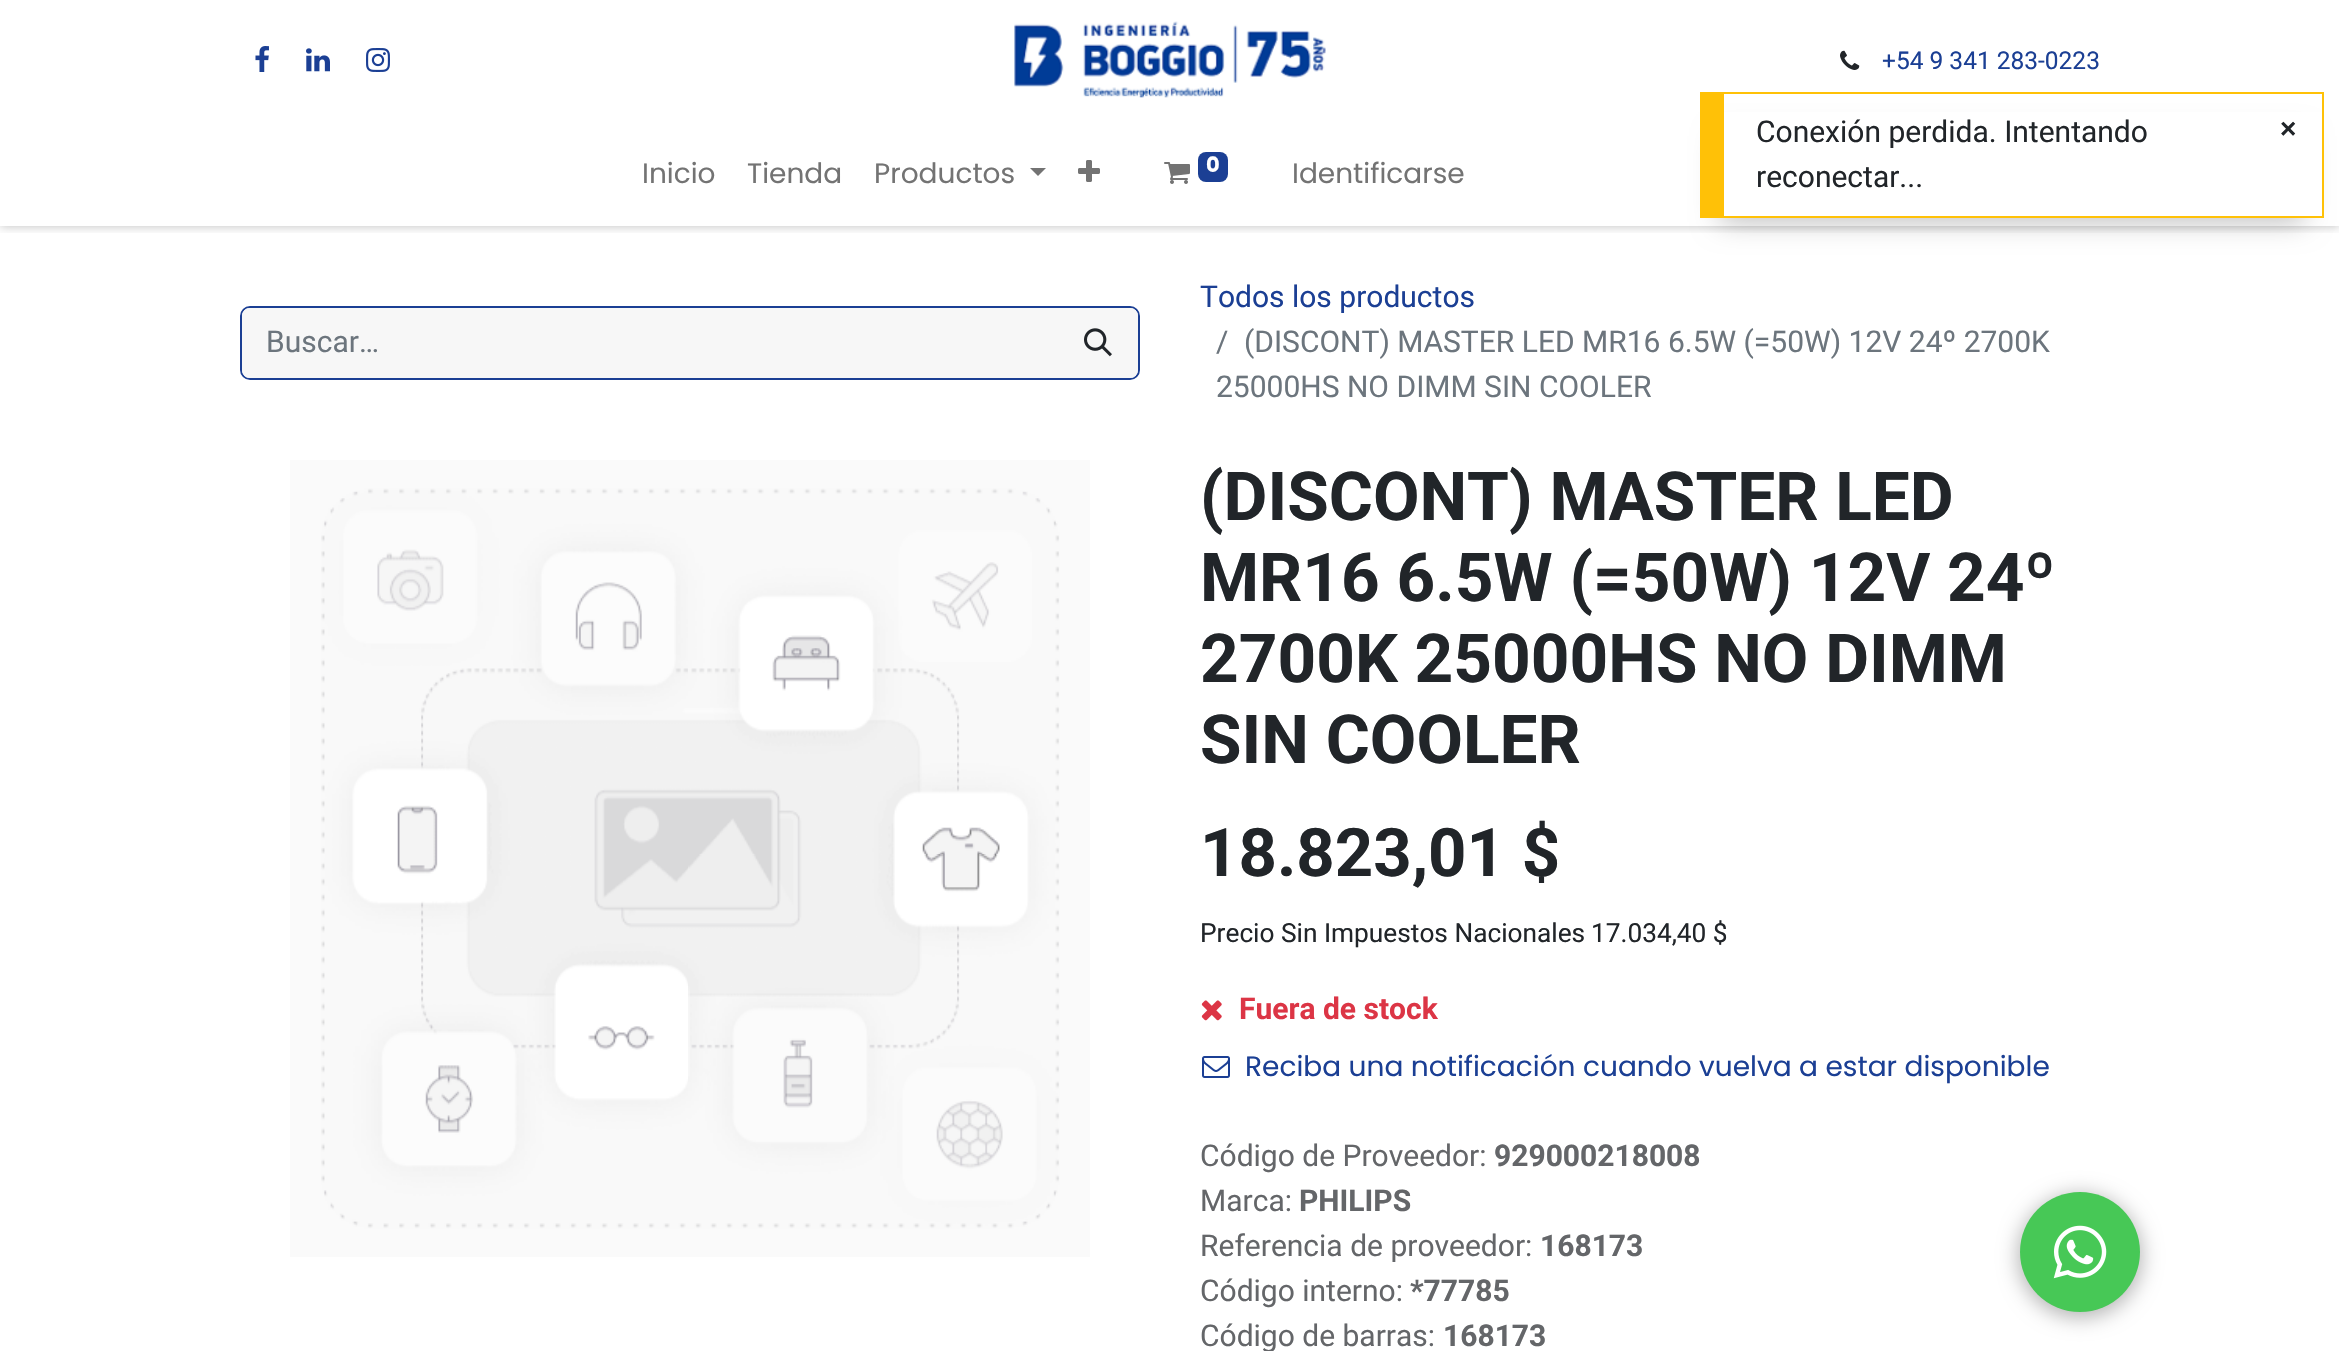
void draw(SkCanvas* canvas) {
  SkPaint paint;
  paint.setAntiAlias(true);
  auto face = [&](const char* family, int weight, float size, bool italic = false) {
    SkFontStyle style(weight, SkFontStyle::kNormal_Width,
      italic ? SkFontStyle::kItalic_Slant : SkFontStyle::kUpright_Slant);
    SkFont result(fontMgr->matchFamilyStyle(family, style), size);
    result.setSubpixel(true);
    return result;
  };
  auto paste = [&](const char* path, float x, float y, float w, float h) {
    auto image = SkImages::DeferredFromEncodedData(SkData::MakeFromFileName(path));
    canvas->drawImageRect(image, SkRect::MakeXYWH(x, y, w, h), SkSamplingOptions());
  };
  auto shape = [&](const char* data, bool evenOdd = false) {
    SkPath result = *SkParsePath::FromSVGString(data);
    if (evenOdd) result.setFillType(SkPathFillType::kEvenOdd);
    return result;
  };
  canvas->clear(0xffffffff);
  canvas->save();
  canvas->clipRect(SkRect::MakeXYWH(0, 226, 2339, 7));
  paint.setColor(0x40000000);
  paint.setMaskFilter(SkMaskFilter::MakeBlur(kNormal_SkBlurStyle, 5));
  canvas->drawRect(SkRect::MakeXYWH(0, 0, 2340, 226), paint);
  paint.setMaskFilter(nullptr);
  canvas->restore();
  paste("img/1.png", 255, 46, 14, 26);
  paste("img/2.png", 306, 48, 24, 24);
  paste("img/3.png", 366, 48, 24, 24);
  paste("img/4.png", 1014, 21, 312, 77);
  paste("img/5.png", 1840, 50, 20, 20);
  paint.setColor(0xff737373);
  canvas->drawPath(shape("M1030 168H1046L1038 176Z"), paint);
  paste("img/6.png", 1078, 160, 22, 22);
  paste("img/7.png", 1164, 162, 26, 22);
  paint.setColor(0xff1b3f94);
  canvas->drawRoundRect(SkRect::MakeXYWH(1198, 152, 30, 30), 8, 8, paint);
  paint.setStroke(true);
  paint.setStrokeWidth(2);
  canvas->drawRoundRect(SkRect::MakeXYWH(241, 307, 898, 72), 9, 9, paint);
  paint.setStroke(false);
  paint.setColor(0xfff7f7f7);
  canvas->drawPath(shape("M250 308H1060V378H250C245.5 378 242 374.5 242 370V316C242 311.5 245.5 308 250 308Z"), paint);
  canvas->drawPath(shape("M1059 309H1130C1134 309 1137 312 1137 316V370C1137 374 1134 377 1130 377H1059Z"), paint);
  paint.setStroke(true);
  canvas->drawPath(shape("M1059 309H1130C1134 309 1137 312 1137 316V370C1137 374 1134 377 1130 377H1059Z"), paint);
  paste("img/8.png", 1084, 328, 28, 29);
  paste("img/9.png", 290, 460, 800, 797);
  paste("img/10.png", 1201, 1000, 21, 21);
  paste("img/11.png", 1202, 1056, 28, 22);
  paint.setStroke(false);
  paint.setColor(0x40000000);
  paint.setMaskFilter(SkMaskFilter::MakeBlur(kNormal_SkBlurStyle, 14));
  canvas->drawRect(SkRect::MakeXYWH(1720, 136, 584, 86), paint);
  paint.setMaskFilter(nullptr);
  {
    const struct { float x, y, w, h; SkColor color; } items[] = {
      {1724, 112, 598, 104, 0xffffffff},
      {1724, 92, 600, 2, 0xffffc107},
      {2322, 92, 2, 126, 0xffffc107},
      {1724, 216, 600, 2, 0xffffc107},
      {1700, 92, 24, 126, 0xffffc107},
    };
    for (auto [x, y, w, h, color] : items) {
      paint.setColor(color);
      canvas->drawRect(SkRect::MakeXYWH(x, y, w, h), paint);
    }
  }
  paint.setColor(0xffb5b5b5);
  paint.setMaskFilter(SkMaskFilter::MakeBlur(kNormal_SkBlurStyle, 10));
  canvas->drawRoundRect(SkRect::MakeXYWH(2018, 1194, 124, 124), 62, 62, paint);
  paint.setMaskFilter(nullptr);
  paint.setColor(0xff47c856);
  canvas->drawCircle(2080, 1252, 60, paint);
  paste("img/12.png", 2053, 1225, 54, 54);
  auto f0 = face("Roboto", 400, 24.5f);
  paint.setColor(0xff1b3f94);
  canvas->drawString("+54 9 341 283-0223", 1882, 69, f0, paint);
  auto f1 = face("Poppins", 400, 28);
  paint.setColor(0xff737373);
  {
    const struct { const char* s; float x, y; } items[] = {
      {"Inicio", 642, 183},
      {"Tienda", 747, 183},
      {"Productos", 874, 183},
    };
    for (auto [s, x, y] : items) {
      canvas->drawString(s, x, y, f1, paint);
    }
  }
  auto f2 = face("Poppins", 700, 21);
  paint.setColor(0xffffffff);
  canvas->drawString("0", 1206, 172, f2, paint);
  paint.setColor(0xff737373);
  canvas->drawString("Identificarse", 1292, 183, f1, paint);
  auto f3 = face("Roboto", 400, 30);
  paint.setColor(0xff6c757d);
  canvas->drawString("Buscar…", 266, 352, f3, paint);
  paint.setColor(0xff1b3f94);
  canvas->drawString("Todos los productos", 1200, 307, f3, paint);
  paint.setColor(0xff6c757d);
  {
    const struct { const char* s; float x, y; } items[] = {
      {"/", 1216, 352},
      {"(DISCONT) MASTER LED MR16 6.5W (=50W) 12V 24º 2700K", 1244, 352},
      {"25000HS NO DIMM SIN COOLER", 1216, 397},
    };
    for (auto [s, x, y] : items) {
      canvas->drawString(s, x, y, f3, paint);
    }
  }
  auto f4 = face("Roboto", 700, 67.5f);
  paint.setColor(0xff212529);
  {
    const struct { const char* s; float x, y; } items[] = {
      {"(DISCONT) MASTER LED", 1200, 520},
      {"MR16 6.5W (=50W) 12V 24º", 1200, 601},
      {"2700K 25000HS NO DIMM", 1200, 682},
      {"SIN COOLER", 1200, 763},
    };
    for (auto [s, x, y] : items) {
      canvas->drawString(s, x, y, f4, paint);
    }
  }
  auto f5 = face("Roboto", 700, 67);
  canvas->drawString("18.823,01 $", 1200, 876, f5, paint);
  auto f6 = face("Roboto", 400, 26.25f);
  canvas->drawString("Precio Sin Impuestos Nacionales", 1200, 942, f6, paint);
  canvas->drawString("17.034,40 $", 1591, 942, f6, paint);
  auto f7 = face("Roboto", 700, 30);
  paint.setColor(0xffdc3545);
  canvas->drawString("Fuera de stock", 1239, 1019, f7, paint);
  paint.setColor(0xff1b3f94);
  canvas->drawString("Reciba una notificación cuando vuelva a estar disponible", 1245, 1076, f1, paint);
  paint.setColor(0xff646669);
  canvas->drawString("Código de Proveedor:", 1200, 1166, f3, paint);
  canvas->drawString("929000218008", 1494, 1166, f7, paint);
  canvas->drawString("Marca:", 1200, 1211, f3, paint);
  canvas->drawString("PHILIPS", 1299, 1211, f7, paint);
  canvas->drawString("Referencia de proveedor:", 1200, 1256, f3, paint);
  canvas->drawString("168173", 1540, 1256, f7, paint);
  canvas->drawString("Código interno:", 1200, 1301, f3, paint);
  canvas->drawString("*77785", 1410, 1301, f7, paint);
  canvas->drawString("Código de barras:", 1200, 1346, f3, paint);
  canvas->drawString("168173", 1443, 1346, f7, paint);
  paint.setColor(0xff212529);
  canvas->drawString("Conexión perdida. Intentando", 1756, 142, f3, paint);
  canvas->drawString("reconectar...", 1756, 187, f3, paint);
  auto f8 = face("Liberation Sans", 700, 28);
  canvas->drawString("×", 2280, 138, f8, paint);
}
